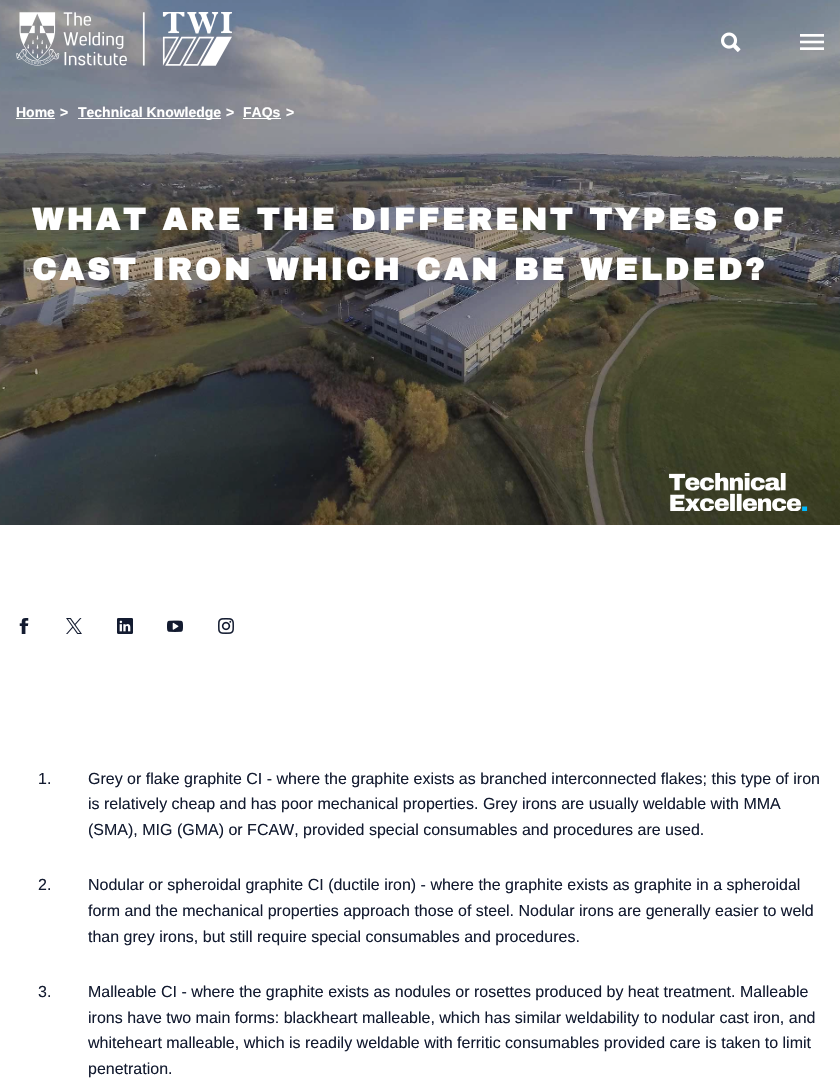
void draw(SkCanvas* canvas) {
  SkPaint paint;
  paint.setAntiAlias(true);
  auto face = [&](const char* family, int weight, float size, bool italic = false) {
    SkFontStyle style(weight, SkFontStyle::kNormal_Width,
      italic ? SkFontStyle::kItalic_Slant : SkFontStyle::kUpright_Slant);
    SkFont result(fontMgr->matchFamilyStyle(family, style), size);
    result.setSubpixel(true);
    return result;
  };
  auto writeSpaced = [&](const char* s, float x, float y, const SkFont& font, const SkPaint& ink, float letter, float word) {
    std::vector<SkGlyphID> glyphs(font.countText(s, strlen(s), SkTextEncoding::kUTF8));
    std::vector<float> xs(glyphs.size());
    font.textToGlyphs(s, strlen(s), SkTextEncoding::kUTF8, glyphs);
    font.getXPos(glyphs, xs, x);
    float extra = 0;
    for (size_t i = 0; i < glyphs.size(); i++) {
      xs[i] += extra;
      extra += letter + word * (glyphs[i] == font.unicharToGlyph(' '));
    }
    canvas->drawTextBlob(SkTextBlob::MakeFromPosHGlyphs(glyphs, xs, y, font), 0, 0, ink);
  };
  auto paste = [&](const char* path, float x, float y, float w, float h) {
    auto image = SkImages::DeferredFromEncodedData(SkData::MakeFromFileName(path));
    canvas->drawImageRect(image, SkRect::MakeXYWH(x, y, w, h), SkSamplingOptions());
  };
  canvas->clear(0xffffffff);
  paste("img/4.png", 0, 0, 840, 525);
  paste("img/1.png", 16, 12, 216, 54);
  paste("img/2.png", 721, 32, 20, 20);
  paste("img/3.png", 800, 34, 24, 16);
  {
    const struct { float x, y, w, h; SkColor color; } items[] = {
      {16, 118, 39, 1, 0xffffffff},
      {78, 118, 143, 1, 0xffffffff},
      {243, 118, 38, 1, 0xffffffff},
    };
    for (auto [x, y, w, h, color] : items) {
      paint.setColor(color);
      canvas->drawRect(SkRect::MakeXYWH(x, y, w, h), paint);
    }
  }
  paste("img/5.png", 669, 473, 139, 38);
  paste("img/6.png", 19, 618, 10, 16);
  paste("img/7.png", 66, 618, 16, 16);
  paste("img/8.png", 117, 618, 16, 16);
  paste("img/9.png", 167, 620, 16, 12);
  paste("img/10.png", 218, 618, 16, 16);
  auto f0 = face("Liberation Sans", 700, 14);
  {
    const struct { const char* s; float x, y; } items[] = {
      {"Home", 16, 117},
      {">", 60, 117},
      {"Technical Knowledge", 78, 117},
      {">", 226, 117},
      {"FAQs", 243, 117},
      {">", 286, 117},
    };
    for (auto [s, x, y] : items) {
      canvas->drawString(s, x, y, f0, paint);
    }
  }
  auto f1 = face("Archivo Black", 700, 31.2f);
  writeSpaced("WHAT ARE THE DIFFERENT TYPES OF", 32, 230, f1, paint, 3.2f, 0);
  writeSpaced("CAST IRON WHICH CAN BE WELDED?", 32, 280, f1, paint, 3.2f, 0);
  auto f2 = face("Liberation Sans", 400, 16);
  paint.setColor(0xff131b30);
  {
    const struct { const char* s; float x, y; } items[] = {
      {"1.", 38, 784},
      {"Grey or flake graphite CI - where the graphite exists as branched interconnected flakes; this type of iron", 88, 784},
      {"is relatively cheap and has poor mechanical properties. Grey irons are usually weldable with MMA", 88, 809},
      {"(SMA), MIG (GMA) or FCAW, provided special consumables and procedures are used.", 88, 835},
      {"2.", 38, 890},
      {"Nodular or spheroidal graphite CI (ductile iron) - where the graphite exists as graphite in a spheroidal", 88, 890},
      {"form and the mechanical properties approach those of steel. Nodular irons are generally easier to weld", 88, 916},
      {"than grey irons, but still require special consumables and procedures.", 88, 942},
      {"3.", 38, 997},
      {"Malleable CI - where the graphite exists as nodules or rosettes produced by heat treatment. Malleable", 88, 997},
      {"irons have two main forms: blackheart malleable, which has similar weldability to nodular cast iron, and", 88, 1023},
      {"whiteheart malleable, which is readily weldable with ferritic consumables provided care is taken to limit", 88, 1048},
      {"penetration.", 88, 1074},
    };
    for (auto [s, x, y] : items) {
      canvas->drawString(s, x, y, f2, paint);
    }
  }
}
